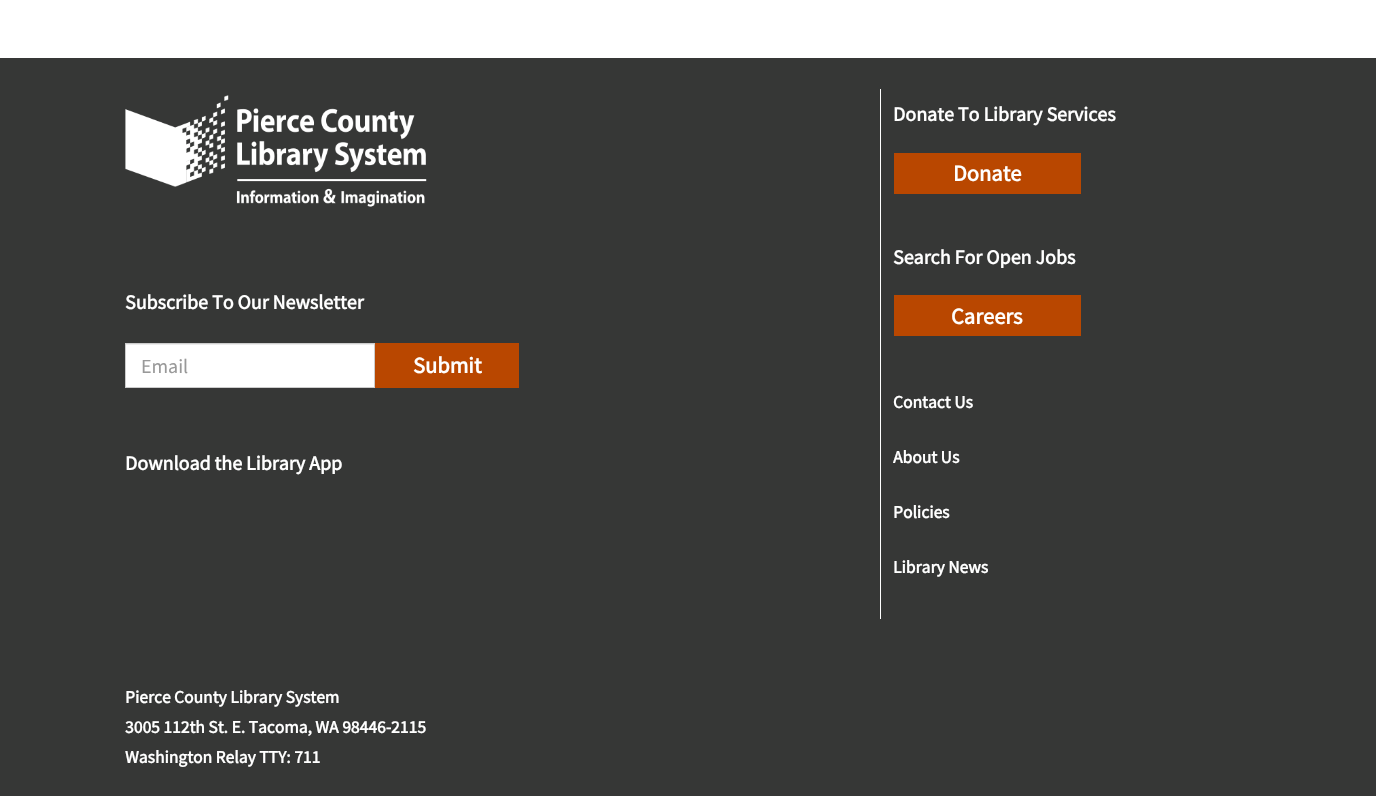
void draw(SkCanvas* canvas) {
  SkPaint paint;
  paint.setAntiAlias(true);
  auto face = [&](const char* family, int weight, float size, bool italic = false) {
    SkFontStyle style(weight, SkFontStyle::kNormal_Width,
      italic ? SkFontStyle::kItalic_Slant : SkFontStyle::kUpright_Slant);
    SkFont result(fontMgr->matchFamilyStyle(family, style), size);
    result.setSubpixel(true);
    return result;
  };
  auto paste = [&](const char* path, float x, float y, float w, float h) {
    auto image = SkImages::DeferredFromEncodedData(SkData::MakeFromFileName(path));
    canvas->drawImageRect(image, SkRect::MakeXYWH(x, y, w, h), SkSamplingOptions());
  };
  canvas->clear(0xffffffff);
  paint.setColor(0xff363736);
  canvas->drawRect(SkRect::MakeXYWH(0, 58, 1376, 738), paint);
  paste("img/1.png", 125, 95, 302, 112);
  paint.setColor(0xffffffff);
  canvas->drawRect(SkRect::MakeXYWH(126, 345, 248, 42), paint);
  paint.setColor(0xffececec);
  canvas->drawRect(SkRect::MakeXYWH(126, 344, 248, 1), paint);
  paint.setStroke(true);
  paint.setStrokeWidth(1);
  paint.setColor(0xffcccccc);
  canvas->drawRect(SkRect::MakeXYWH(125.5f, 343.5f, 249, 44), paint);
  paint.setStroke(false);
  {
    const struct { float x, y, w, h; SkColor color; } items[] = {
      {375, 343, 144, 45, 0xffb94700},
      {880, 89, 1, 530, 0xffffffff},
      {894, 153, 187, 41, 0xffb94700},
      {894, 295, 187, 41, 0xffb94700},
    };
    for (auto [x, y, w, h, color] : items) {
      paint.setColor(color);
      canvas->drawRect(SkRect::MakeXYWH(x, y, w, h), paint);
    }
  }
  auto f0 = face("Source Sans Pro", 700, 20);
  paint.setColor(0xffffffff);
  canvas->drawString("Subscribe To Our Newsletter", 125, 309, f0, paint);
  auto f1 = face("Source Sans Pro", 400, 20);
  paint.setColor(0xff999999);
  canvas->drawString("Email", 141, 373, f1, paint);
  auto f2 = face("Source Sans Pro", 700, 22.5f);
  paint.setColor(0xffffffff);
  canvas->drawString("Submit", 413, 373, f2, paint);
  canvas->drawString("Download the Library App", 125, 470, f0, paint);
  canvas->drawString("Donate To Library Services", 893, 121, f0, paint);
  canvas->drawString("Donate", 953, 181, f2, paint);
  canvas->drawString("Search For Open Jobs", 893, 264, f0, paint);
  canvas->drawString("Careers", 951, 324, f2, paint);
  auto f3 = face("Source Sans Pro", 700, 17.5f);
  {
    const struct { const char* s; float x, y; } items[] = {
      {"Contact Us", 893, 408},
      {"About Us", 893, 463},
      {"Policies", 893, 518},
      {"Library News", 893, 573},
      {"Pierce County Library System", 125, 703},
      {"3005 112th St. E. Tacoma, WA 98446-2115", 125, 733},
      {"Washington Relay TTY: 711", 125, 763},
    };
    for (auto [s, x, y] : items) {
      canvas->drawString(s, x, y, f3, paint);
    }
  }
}
